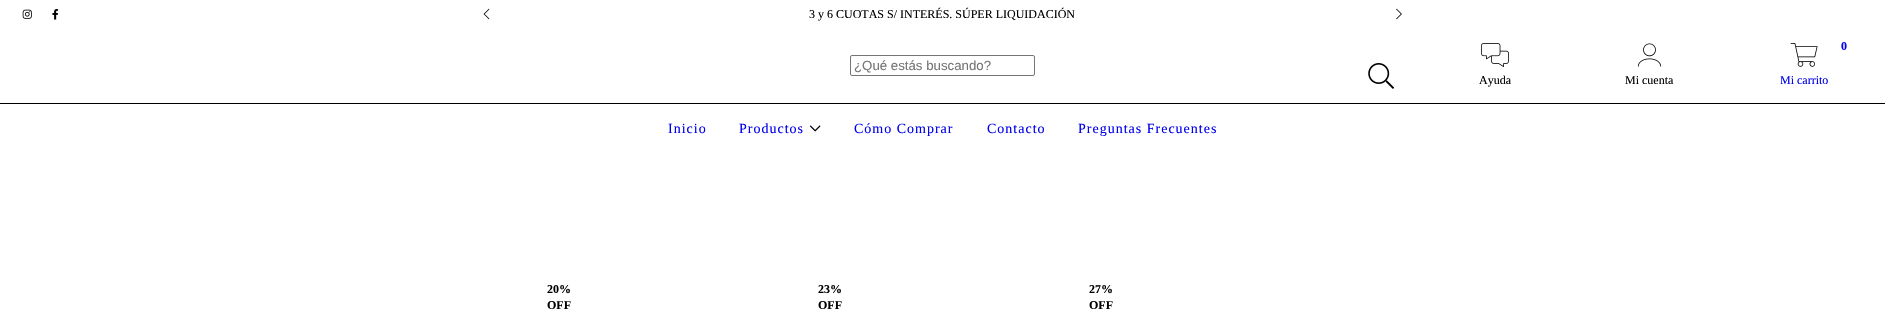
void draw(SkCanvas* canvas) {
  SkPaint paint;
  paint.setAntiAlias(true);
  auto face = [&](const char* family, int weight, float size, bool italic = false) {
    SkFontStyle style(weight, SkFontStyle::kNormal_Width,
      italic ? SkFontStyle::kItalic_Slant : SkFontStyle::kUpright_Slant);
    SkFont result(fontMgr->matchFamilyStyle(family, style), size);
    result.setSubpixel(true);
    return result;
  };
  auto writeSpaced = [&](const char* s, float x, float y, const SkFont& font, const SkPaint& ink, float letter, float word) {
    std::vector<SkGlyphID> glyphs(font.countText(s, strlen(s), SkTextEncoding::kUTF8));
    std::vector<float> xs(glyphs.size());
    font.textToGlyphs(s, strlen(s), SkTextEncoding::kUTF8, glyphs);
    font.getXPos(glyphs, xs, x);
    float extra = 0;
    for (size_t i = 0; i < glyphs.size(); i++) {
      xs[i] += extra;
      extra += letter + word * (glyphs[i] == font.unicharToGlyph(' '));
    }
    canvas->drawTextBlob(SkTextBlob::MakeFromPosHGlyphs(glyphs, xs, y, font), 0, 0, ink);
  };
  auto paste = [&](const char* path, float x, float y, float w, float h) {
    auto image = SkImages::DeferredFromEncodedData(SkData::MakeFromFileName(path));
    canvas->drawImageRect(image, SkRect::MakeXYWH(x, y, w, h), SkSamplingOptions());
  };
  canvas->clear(0xffffffff);
  paste("img/1.png", 22, 9, 10, 10);
  paste("img/2.png", 52, 9, 7, 11);
  paste("img/3.png", 483, 8, 7, 12);
  paste("img/4.png", 1396, 8, 6, 12);
  paint.setStroke(true);
  paint.setStrokeWidth(1);
  paint.setColor(0xff767676);
  canvas->drawRoundRect(SkRect::MakeXYWH(850.5f, 55.5f, 184, 20), 1.5f, 1.5f, paint);
  paste("img/5.png", 1368, 63, 26, 26);
  paste("img/6.png", 1481, 43, 28, 24);
  paste("img/7.png", 1637, 43, 25, 24);
  paste("img/8.png", 1790, 43, 28, 24);
  paint.setStroke(false);
  paint.setColor(0xff000000);
  canvas->drawRect(SkRect::MakeXYWH(0, 103, 1885, 1), paint);
  paste("img/9.png", 809, 125, 12, 7);
  auto f0 = face("Liberation Serif", 400, 12);
  canvas->drawString("3 y 6 CUOTAS S/ INTERÉS. SÚPER LIQUIDACIÓN", 809, 18, f0, paint);
  auto f1 = face("Liberation Sans", 400, 13.25f);
  paint.setColor(0xff757575);
  canvas->drawString("¿Qué estás buscando?", 854, 70, f1, paint);
  paint.setColor(0xff000000);
  canvas->drawString("Ayuda", 1479, 84, f0, paint);
  canvas->drawString("Mi cuenta", 1625, 84, f0, paint);
  auto f2 = face("Liberation Serif", 700, 12);
  paint.setColor(0xff0000ee);
  canvas->drawString("0", 1841, 50, f2, paint);
  canvas->drawString("Mi carrito", 1780, 84, f0, paint);
  auto f3 = face("Liberation Serif", 400, 14);
  {
    const struct { const char* s; float x, y; } items[] = {
      {"Inicio", 668, 133},
      {"Productos", 739, 133},
      {"Cómo Comprar", 854, 133},
      {"Contacto", 987, 133},
      {"Preguntas Frecuentes", 1078, 133},
    };
    for (auto [s, x, y] : items) {
      writeSpaced(s, x, y, f3, paint, 1, 0);
    }
  }
  paint.setColor(0xff000000);
  {
    const struct { const char* s; float x, y; } items[] = {
      {"20%", 547, 293},
      {"OFF", 547, 309},
      {"23%", 818, 293},
      {"OFF", 818, 309},
      {"27%", 1089, 293},
      {"OFF", 1089, 309},
    };
    for (auto [s, x, y] : items) {
      canvas->drawString(s, x, y, f2, paint);
    }
  }
}
